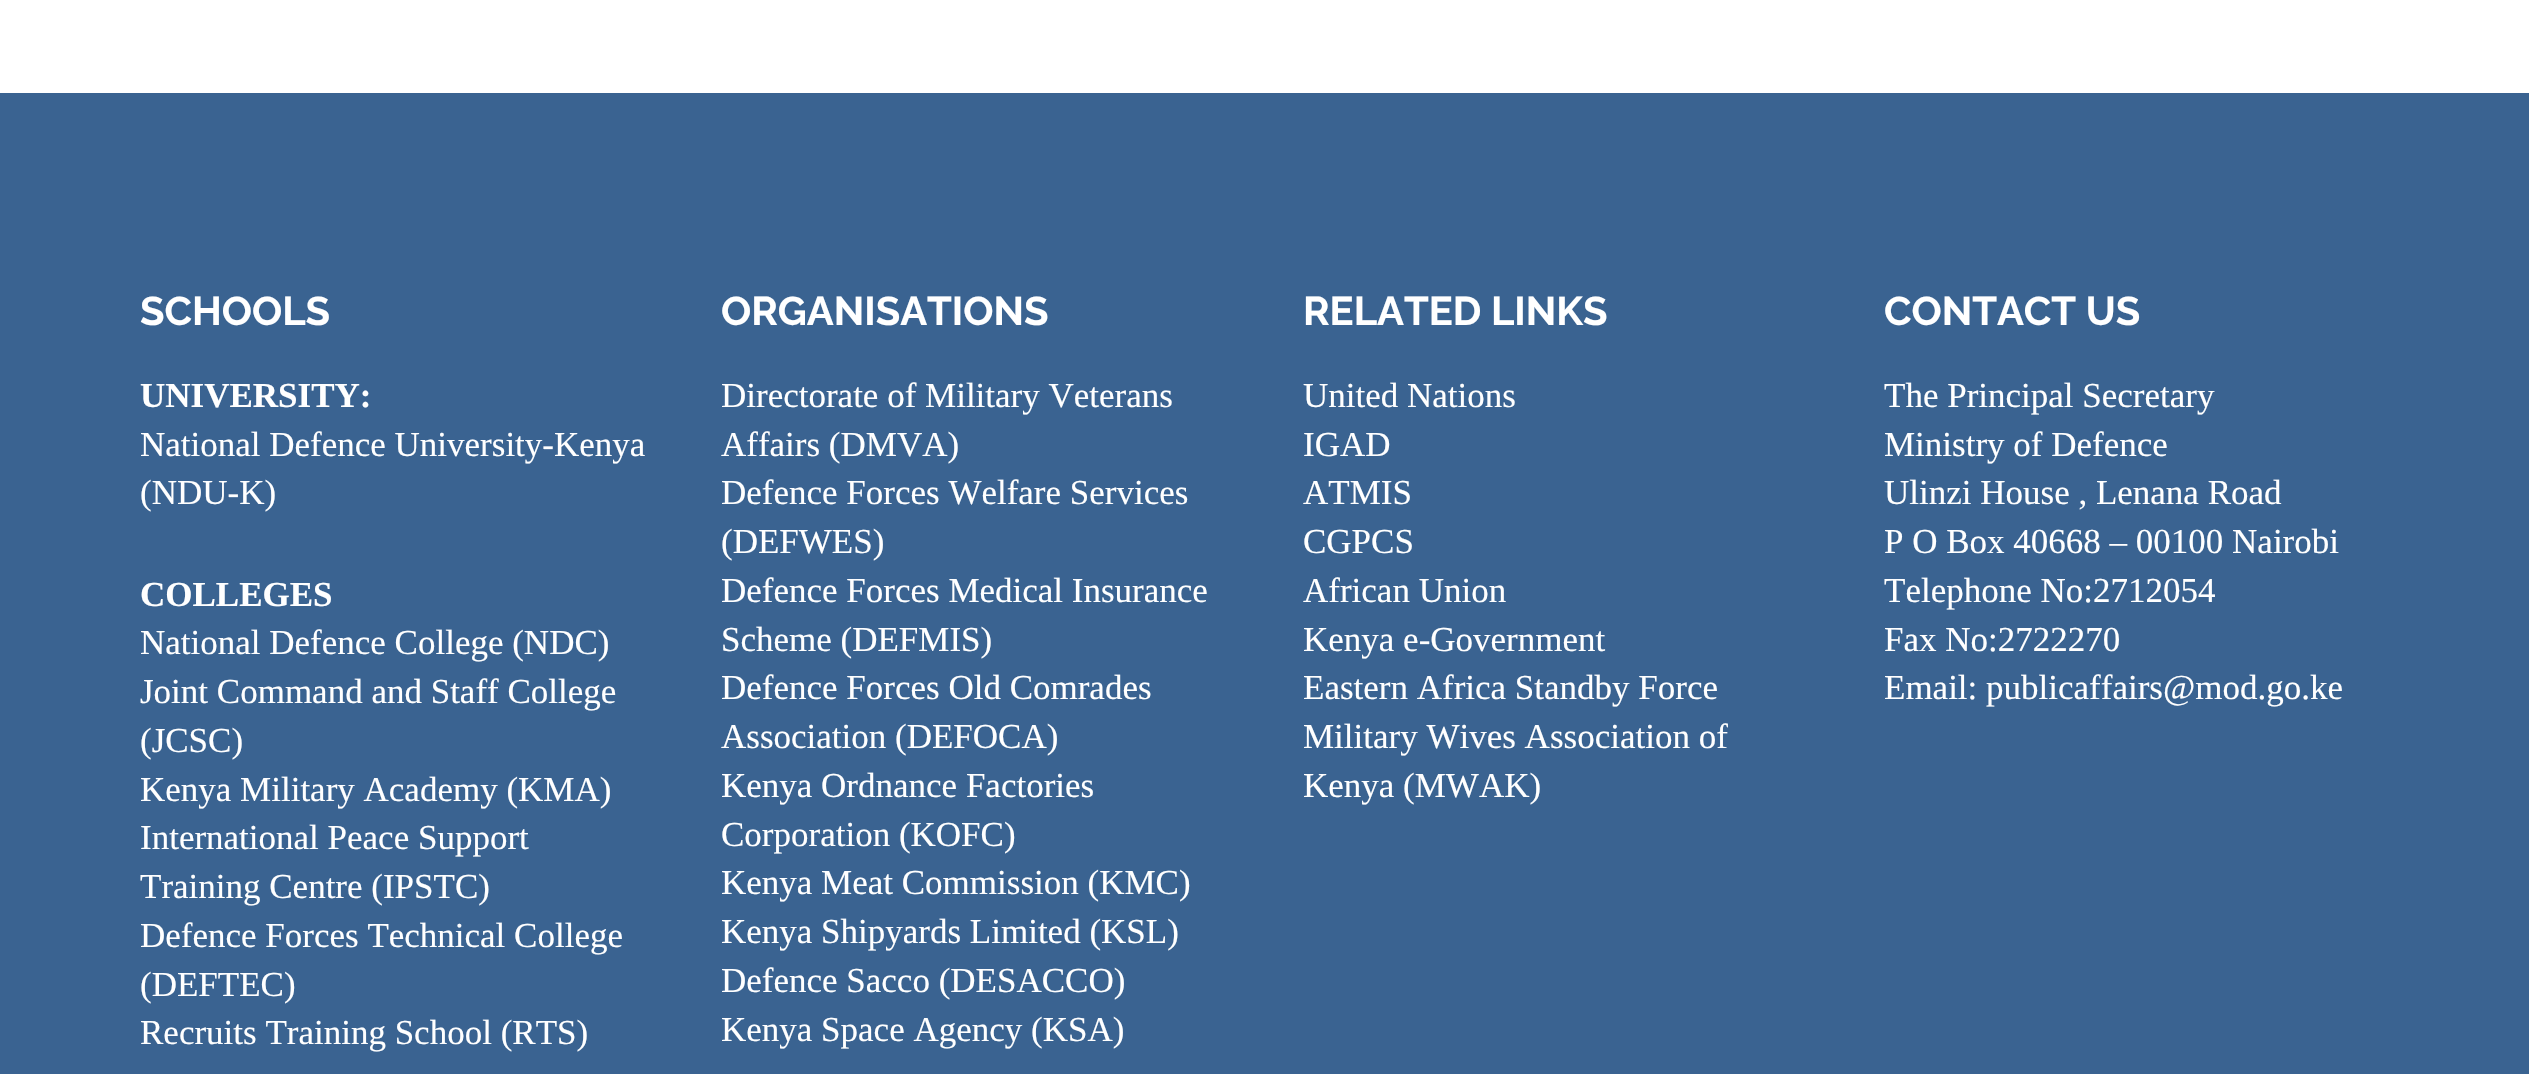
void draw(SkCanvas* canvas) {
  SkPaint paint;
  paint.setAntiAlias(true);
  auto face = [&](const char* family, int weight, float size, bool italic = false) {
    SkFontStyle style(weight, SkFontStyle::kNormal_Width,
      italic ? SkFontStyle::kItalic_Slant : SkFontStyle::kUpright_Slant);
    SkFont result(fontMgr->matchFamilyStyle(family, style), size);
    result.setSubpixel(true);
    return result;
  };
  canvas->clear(0xffffffff);
  paint.setColor(0xff3a6391);
  canvas->drawRect(SkRect::MakeXYWH(0, 93, 2529, 981), paint);
  auto f0 = face("Raleway", 700, 40);
  paint.setColor(0xffffffff);
  canvas->drawString("SCHOOLS", 140, 325, f0, paint);
  auto f1 = face("Liberation Serif", 700, 35);
  canvas->drawString("UNIVERSITY:", 140, 407, f1, paint);
  auto f2 = face("Liberation Serif", 400, 35);
  canvas->drawString("National Defence University-Kenya", 140, 456, f2, paint);
  canvas->drawString("(NDU-K)", 140, 504, f2, paint);
  canvas->drawString("COLLEGES", 140, 606, f1, paint);
  {
    const struct { const char* s; float x, y; } items[] = {
      {"National Defence College (NDC)", 140, 654},
      {"Joint Command and Staff College", 140, 703},
      {"(JCSC)", 140, 752},
      {"Kenya Military Academy (KMA)", 140, 801},
      {"International Peace Support", 140, 849},
      {"Training Centre (IPSTC)", 140, 898},
      {"Defence Forces Technical College", 140, 947},
      {"(DEFTEC)", 140, 996},
      {"Recruits Training School (RTS)", 140, 1044},
    };
    for (auto [s, x, y] : items) {
      canvas->drawString(s, x, y, f2, paint);
    }
  }
  canvas->drawString("ORGANISATIONS", 721, 325, f0, paint);
  {
    const struct { const char* s; float x, y; } items[] = {
      {"Directorate of Military Veterans", 721, 407},
      {"Affairs (DMVA)", 721, 456},
      {"Defence Forces Welfare Services", 721, 504},
      {"(DEFWES)", 721, 553},
      {"Defence Forces Medical Insurance", 721, 602},
      {"Scheme (DEFMIS)", 721, 651},
      {"Defence Forces Old Comrades", 721, 699},
      {"Association (DEFOCA)", 721, 748},
      {"Kenya Ordnance Factories", 721, 797},
      {"Corporation (KOFC)", 721, 846},
      {"Kenya Meat Commission (KMC)", 721, 894},
      {"Kenya Shipyards Limited (KSL)", 721, 943},
      {"Defence Sacco (DESACCO)", 721, 992},
      {"Kenya Space Agency (KSA)", 721, 1041},
    };
    for (auto [s, x, y] : items) {
      canvas->drawString(s, x, y, f2, paint);
    }
  }
  canvas->drawString("RELATED LINKS", 1303, 325, f0, paint);
  {
    const struct { const char* s; float x, y; } items[] = {
      {"United Nations", 1303, 407},
      {"IGAD", 1303, 456},
      {"ATMIS", 1303, 504},
      {"CGPCS", 1303, 553},
      {"African Union", 1303, 602},
      {"Kenya e-Government", 1303, 651},
      {"Eastern Africa Standby Force", 1303, 699},
      {"Military Wives Association of", 1303, 748},
      {"Kenya (MWAK)", 1303, 797},
    };
    for (auto [s, x, y] : items) {
      canvas->drawString(s, x, y, f2, paint);
    }
  }
  canvas->drawString("CONTACT US", 1884, 325, f0, paint);
  {
    const struct { const char* s; float x, y; } items[] = {
      {"The Principal Secretary", 1884, 407},
      {"Ministry of Defence", 1884, 456},
      {"Ulinzi House , Lenana Road", 1884, 504},
      {"P O Box 40668 – 00100 Nairobi", 1884, 553},
      {"Telephone No:2712054", 1884, 602},
      {"Fax No:2722270", 1884, 651},
      {"Email: publicaffairs@mod.go.ke", 1884, 699},
    };
    for (auto [s, x, y] : items) {
      canvas->drawString(s, x, y, f2, paint);
    }
  }
}
